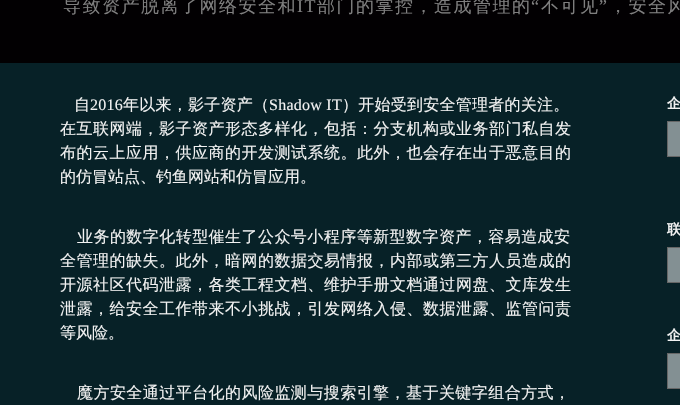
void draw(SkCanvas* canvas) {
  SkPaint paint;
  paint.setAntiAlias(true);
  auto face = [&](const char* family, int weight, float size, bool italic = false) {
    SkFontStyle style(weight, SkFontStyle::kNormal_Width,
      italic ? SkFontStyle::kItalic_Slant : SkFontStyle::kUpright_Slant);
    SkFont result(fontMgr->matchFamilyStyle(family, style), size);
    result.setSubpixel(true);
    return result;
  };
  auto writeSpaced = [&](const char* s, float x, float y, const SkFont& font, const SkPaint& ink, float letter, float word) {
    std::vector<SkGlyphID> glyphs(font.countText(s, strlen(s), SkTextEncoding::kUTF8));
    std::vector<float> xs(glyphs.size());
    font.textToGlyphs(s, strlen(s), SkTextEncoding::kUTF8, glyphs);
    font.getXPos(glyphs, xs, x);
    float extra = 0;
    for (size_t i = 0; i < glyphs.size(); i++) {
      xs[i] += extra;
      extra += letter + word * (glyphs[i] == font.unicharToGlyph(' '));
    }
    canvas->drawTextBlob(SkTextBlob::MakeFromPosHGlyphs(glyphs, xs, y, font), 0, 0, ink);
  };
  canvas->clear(0xff020002);
  paint.setColor(0xff072127);
  canvas->drawRect(SkRect::MakeXYWH(0, 63, 680, 342), paint);
  paint.setColor(0xff839093);
  canvas->drawRect(SkRect::MakeXYWH(667.5f, 121.5f, 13, 35), paint);
  paint.setStroke(true);
  paint.setStrokeWidth(1);
  paint.setColor(0xff666666);
  canvas->drawRect(SkRect::MakeXYWH(667.5f, 121.5f, 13, 35), paint);
  paint.setStroke(false);
  paint.setColor(0xff839093);
  canvas->drawRect(SkRect::MakeXYWH(667.5f, 247.5f, 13, 35), paint);
  paint.setStroke(true);
  paint.setColor(0xff666666);
  canvas->drawRect(SkRect::MakeXYWH(667.5f, 247.5f, 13, 35), paint);
  paint.setStroke(false);
  paint.setColor(0xff839093);
  canvas->drawRect(SkRect::MakeXYWH(667.5f, 353.5f, 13, 35), paint);
  paint.setStroke(true);
  paint.setColor(0xff666666);
  canvas->drawRect(SkRect::MakeXYWH(667.5f, 353.5f, 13, 35), paint);
  auto f0 = face("WenQuanYi Zen Hei", 500, 18);
  paint.setStroke(false);
  paint.setColor(0xff7f7f7f);
  writeSpaced("导致资产脱离了网络安全和", 63, 12, f0, paint, 1.5f, 0);
  auto f1 = face("Liberation Serif", 400, 18);
  writeSpaced("IT", 297, 12, f1, paint, 1.5f, 0);
  writeSpaced("部门的掌控，造成管理的", 317, 12, f0, paint, 1.5f, 0);
  writeSpaced("“", 531, 12, f1, paint, 1.5f, 0);
  writeSpaced("不可见", 541, 12, f0, paint, 1.5f, 0);
  writeSpaced("”", 599, 12, f1, paint, 1.5f, 0);
  writeSpaced("，安全风", 609, 12, f0, paint, 1.5f, 0);
  auto f2 = face("WenQuanYi Zen Hei", 500, 16);
  paint.setColor(0xfff2f2f2);
  writeSpaced("自", 74, 110, f2, paint, 0.25f, 0);
  auto f3 = face("Liberation Serif", 400, 16);
  writeSpaced("2016", 90, 110, f3, paint, 0.25f, 0);
  writeSpaced("年以来，影子资产（", 123, 110, f2, paint, 0.25f, 0);
  writeSpaced("Shadow IT", 269, 110, f3, paint, 0.25f, 0);
  writeSpaced("）开始受到安全管理者的关注。", 342, 110, f2, paint, 0.25f, 0);
  writeSpaced("在互联网端，影子资产形态多样化，包括：分支机构或业务部门私自发", 60, 134, f2, paint, 0.5f, 0);
  writeSpaced("布的云上应用，供应商的开发测试系统。此外，也会存在出于恶意目的", 60, 158, f2, paint, 0.5f, 0);
  canvas->drawString("的仿冒站点、钓鱼网站和仿冒应用。", 60, 182, f2, paint);
  writeSpaced("业务的数字化转型催生了公众号小程序等新型数字资产，容易造成安", 77, 242, f2, paint, 0.45f, 0);
  {
    const struct { const char* s; float x, y; } items[] = {
      {"全管理的缺失。此外，暗网的数据交易情报，内部或第三方人员造成的", 60, 266},
      {"开源社区代码泄露，各类工程文档、维护手册文档通过网盘、文库发生", 60, 290},
      {"泄露，给安全工作带来不小挑战，引发网络入侵、数据泄露、监管问责", 60, 314},
    };
    for (auto [s, x, y] : items) {
      writeSpaced(s, x, y, f2, paint, 0.5f, 0);
    }
  }
  canvas->drawString("等风险。", 60, 338, f2, paint);
  writeSpaced("魔方安全通过平台化的风险监测与搜索引擎，基于关键字组合方式，", 77, 398, f2, paint, 0.45f, 0);
  auto f4 = face("WenQuanYi Zen Hei", 700, 14);
  {
    const struct { const char* s; float x, y; } items[] = {
      {"企", 667, 108},
      {"联", 667, 234},
      {"企", 667, 340},
    };
    for (auto [s, x, y] : items) {
      canvas->drawString(s, x, y, f4, paint);
    }
  }
}
